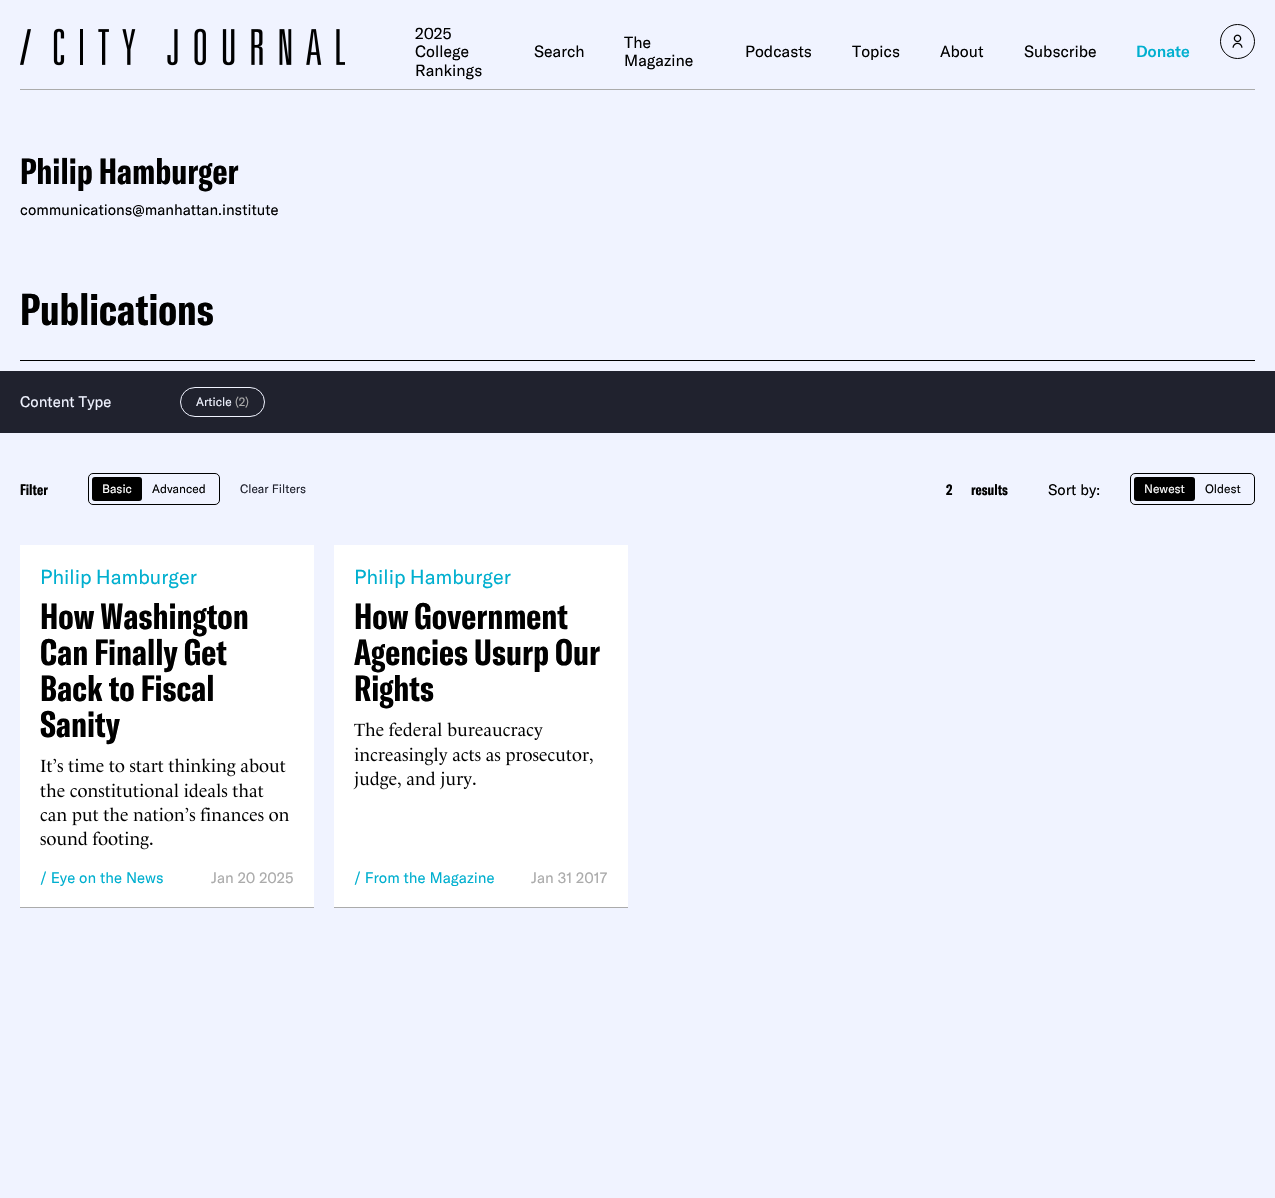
void draw(SkCanvas* canvas) {
  SkPaint paint;
  paint.setAntiAlias(true);
  auto face = [&](const char* family, int weight, float size, bool italic = false) {
    SkFontStyle style(weight, SkFontStyle::kNormal_Width,
      italic ? SkFontStyle::kItalic_Slant : SkFontStyle::kUpright_Slant);
    SkFont result(fontMgr->matchFamilyStyle(family, style), size);
    result.setSubpixel(true);
    return result;
  };
  auto writeSpaced = [&](const char* s, float x, float y, const SkFont& font, const SkPaint& ink, float letter, float word) {
    std::vector<SkGlyphID> glyphs(font.countText(s, strlen(s), SkTextEncoding::kUTF8));
    std::vector<float> xs(glyphs.size());
    font.textToGlyphs(s, strlen(s), SkTextEncoding::kUTF8, glyphs);
    font.getXPos(glyphs, xs, x);
    float extra = 0;
    for (size_t i = 0; i < glyphs.size(); i++) {
      xs[i] += extra;
      extra += letter + word * (glyphs[i] == font.unicharToGlyph(' '));
    }
    canvas->drawTextBlob(SkTextBlob::MakeFromPosHGlyphs(glyphs, xs, y, font), 0, 0, ink);
  };
  auto paste = [&](const char* path, float x, float y, float w, float h) {
    auto image = SkImages::DeferredFromEncodedData(SkData::MakeFromFileName(path));
    canvas->drawImageRect(image, SkRect::MakeXYWH(x, y, w, h), SkSamplingOptions());
  };
  canvas->clear(0xfff0f3ff);
  paint.setColor(0xffababab);
  canvas->drawRect(SkRect::MakeXYWH(20, 89, 1235, 1), paint);
  paste("img/1.png", 20, 28, 325, 38);
  paint.setStroke(true);
  paint.setStrokeWidth(1);
  paint.setColor(0xff000000);
  canvas->drawCircle(1237.5f, 41.5f, 17, paint);
  paste("img/2.png", 1232, 34, 11, 14);
  paint.setStroke(false);
  canvas->drawRect(SkRect::MakeXYWH(20, 360, 1235, 1), paint);
  paint.setColor(0xff20222e);
  canvas->drawRect(SkRect::MakeXYWH(0, 371, 1275, 62), paint);
  paint.setStroke(true);
  paint.setColor(0xfff0f3ff);
  canvas->drawRoundRect(SkRect::MakeXYWH(180.5f, 387.5f, 84, 29), 14.5f, 14.5f, paint);
  paint.setColor(0xff000000);
  canvas->drawRoundRect(SkRect::MakeXYWH(88.5f, 473.5f, 131, 31), 4.5f, 4.5f, paint);
  paint.setStroke(false);
  canvas->drawRoundRect(SkRect::MakeXYWH(92, 477, 50, 24), 3, 3, paint);
  paint.setStroke(true);
  canvas->drawRoundRect(SkRect::MakeXYWH(1130.5f, 473.5f, 124, 31), 4.5f, 4.5f, paint);
  paint.setStroke(false);
  canvas->drawRoundRect(SkRect::MakeXYWH(1134, 477, 61, 24), 3, 3, paint);
  paint.setColor(0xffffffff);
  canvas->drawRect(SkRect::MakeXYWH(20, 545, 294, 362), paint);
  paint.setColor(0xffababab);
  canvas->drawRect(SkRect::MakeXYWH(20, 907, 294, 1), paint);
  paste("img/3.png", 40, 758, 246, 19);
  paste("img/4.png", 40, 783, 224, 15);
  paste("img/5.png", 40, 807, 250, 19);
  paste("img/6.png", 40, 831, 113, 19);
  paint.setColor(0xffffffff);
  canvas->drawRect(SkRect::MakeXYWH(334, 545, 294, 362), paint);
  paint.setColor(0xffababab);
  canvas->drawRect(SkRect::MakeXYWH(334, 907, 294, 1), paint);
  paste("img/7.png", 354, 722, 189, 18);
  paste("img/8.png", 354, 747, 239, 19);
  paste("img/9.png", 353, 771, 123, 19);
  auto f0 = face("GT America", 400, 16);
  paint.setColor(0xff000000);
  {
    const struct { const char* s; float x, y; } items[] = {
      {"2025", 415, 39},
      {"College", 415, 57},
      {"Rankings", 415, 76},
      {"Search", 534, 57},
      {"The", 624, 48},
      {"Magazine", 624, 66},
      {"Podcasts", 745, 57},
      {"Topics", 852, 57},
      {"About", 940, 57},
      {"Subscribe", 1024, 57},
    };
    for (auto [s, x, y] : items) {
      canvas->drawString(s, x, y, f0, paint);
    }
  }
  auto f1 = face("GT America", 500, 16);
  paint.setColor(0xff00afcf);
  canvas->drawString("Donate", 1136, 57, f1, paint);
  auto f2 = face("GT America", 700, 36);
  paint.setColor(0xff000000);
  canvas->drawString("Philip Hamburger", 20, 184, f2, paint);
  auto f3 = face("GT America", 400, 15);
  canvas->drawString("communications@manhattan.institute", 20, 215, f3, paint);
  auto f4 = face("GT America", 700, 44);
  canvas->drawString("Publications", 20, 325, f4, paint);
  paint.setColor(0xfff0f3ff);
  canvas->drawString("Content Type", 20, 407, f3, paint);
  auto f5 = face("GT America", 400, 12);
  canvas->drawString("Article", 196, 406, f5, paint);
  paint.setColor(0xffababab);
  canvas->drawString("(2)", 235, 406, f5, paint);
  auto f6 = face("GT America", 700, 15);
  paint.setColor(0xff000000);
  canvas->drawString("Filter", 20, 495, f6, paint);
  paint.setColor(0xffffffff);
  canvas->drawString("Basic", 102, 493, f5, paint);
  paint.setColor(0xff000000);
  canvas->drawString("Advanced", 152, 493, f5, paint);
  paint.setColor(0xff20222e);
  canvas->drawString("Clear Filters", 240, 493, f5, paint);
  paint.setColor(0xff000000);
  writeSpaced("2 results", 946, 495, f6, paint, 0, 16);
  canvas->drawString("Sort by:", 1048, 495, f3, paint);
  paint.setColor(0xffffffff);
  canvas->drawString("Newest", 1144, 493, f5, paint);
  paint.setColor(0xff000000);
  canvas->drawString("Oldest", 1205, 493, f5, paint);
  auto f7 = face("GT America", 400, 20);
  paint.setColor(0xff00afcf);
  writeSpaced("Philip Hamburger", 40, 584, f7, paint, 0, -1);
  paint.setColor(0xff000000);
  {
    const struct { const char* s; float x, y; } items[] = {
      {"How Washington", 40, 629},
      {"Can Finally Get", 40, 665},
      {"Back to Fiscal", 40, 701},
      {"Sanity", 40, 737},
    };
    for (auto [s, x, y] : items) {
      canvas->drawString(s, x, y, f2, paint);
    }
  }
  paint.setColor(0xff00afcf);
  canvas->drawString("/ Eye on the News", 40, 883, f3, paint);
  paint.setColor(0xffababab);
  canvas->drawString("Jan 20 2025", 211, 883, f3, paint);
  paint.setColor(0xff00afcf);
  writeSpaced("Philip Hamburger", 354, 584, f7, paint, 0, -1);
  paint.setColor(0xff000000);
  {
    const struct { const char* s; float x, y; } items[] = {
      {"How Government", 354, 629},
      {"Agencies Usurp Our", 354, 665},
      {"Rights", 354, 701},
    };
    for (auto [s, x, y] : items) {
      canvas->drawString(s, x, y, f2, paint);
    }
  }
  paint.setColor(0xff00afcf);
  canvas->drawString("/ From the Magazine", 354, 883, f3, paint);
  paint.setColor(0xffababab);
  canvas->drawString("Jan 31 2017", 531, 883, f3, paint);
}
